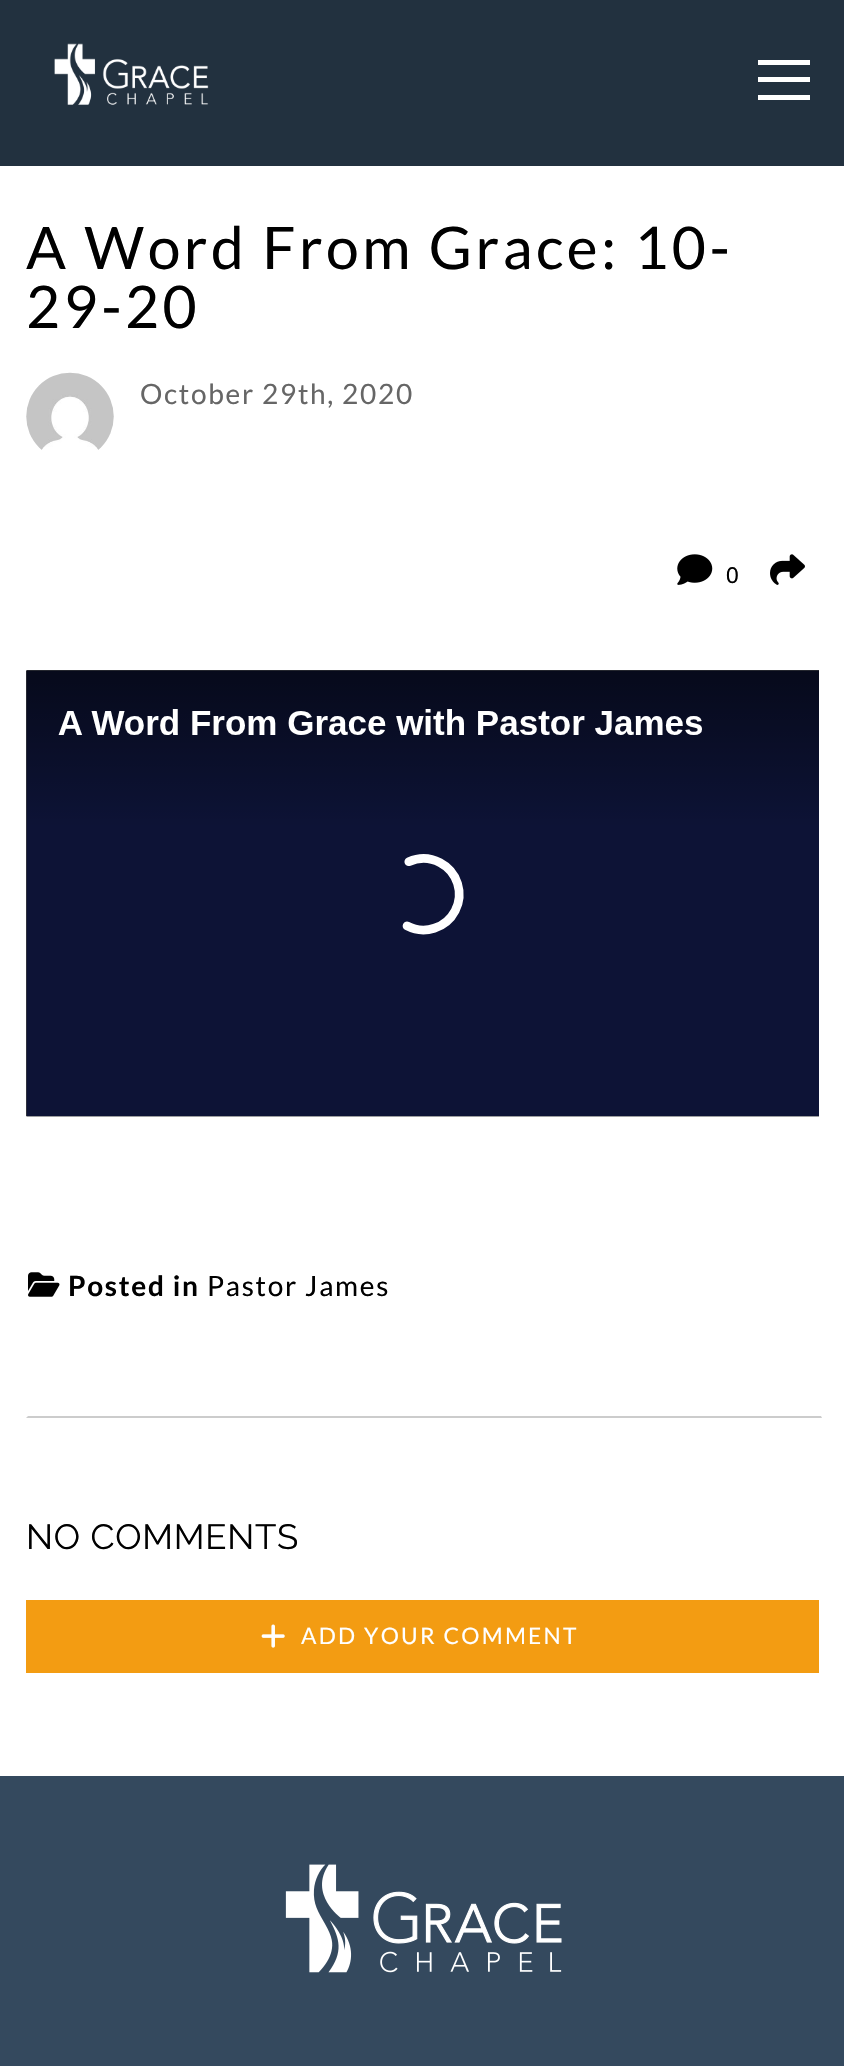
void draw(SkCanvas* canvas) {
  SkPaint paint;
  paint.setAntiAlias(true);
  auto face = [&](const char* family, int weight, float size, bool italic = false) {
    SkFontStyle style(weight, SkFontStyle::kNormal_Width,
      italic ? SkFontStyle::kItalic_Slant : SkFontStyle::kUpright_Slant);
    SkFont result(fontMgr->matchFamilyStyle(family, style), size);
    result.setSubpixel(true);
    return result;
  };
  auto writeSpaced = [&](const char* s, float x, float y, const SkFont& font, const SkPaint& ink, float letter, float word) {
    std::vector<SkGlyphID> glyphs(font.countText(s, strlen(s), SkTextEncoding::kUTF8));
    std::vector<float> xs(glyphs.size());
    font.textToGlyphs(s, strlen(s), SkTextEncoding::kUTF8, glyphs);
    font.getXPos(glyphs, xs, x);
    float extra = 0;
    for (size_t i = 0; i < glyphs.size(); i++) {
      xs[i] += extra;
      extra += letter + word * (glyphs[i] == font.unicharToGlyph(' '));
    }
    canvas->drawTextBlob(SkTextBlob::MakeFromPosHGlyphs(glyphs, xs, y, font), 0, 0, ink);
  };
  auto paste = [&](const char* path, float x, float y, float w, float h) {
    auto image = SkImages::DeferredFromEncodedData(SkData::MakeFromFileName(path));
    canvas->drawImageRect(image, SkRect::MakeXYWH(x, y, w, h), SkSamplingOptions());
  };
  auto shape = [&](const char* data, bool evenOdd = false) {
    SkPath result = *SkParsePath::FromSVGString(data);
    if (evenOdd) result.setFillType(SkPathFillType::kEvenOdd);
    return result;
  };
  canvas->clear(0xff22313f);
  paste("img/1.png", 54, 43, 155, 62);
  {
    const struct { float x, y, w, h; SkColor color; } items[] = {
      {758, 60, 52, 5, 0xffffffff},
      {758, 77, 52, 5, 0xffffffff},
      {758, 95, 52, 5, 0xffffffff},
      {0, 166, 844, 1610, 0xffffffff},
    };
    for (auto [x, y, w, h, color] : items) {
      paint.setColor(color);
      canvas->drawRect(SkRect::MakeXYWH(x, y, w, h), paint);
    }
  }
  paste("img/2.png", 26, 372, 88, 78);
  paste("img/3.png", 677, 554, 36, 31);
  paste("img/4.png", 770, 554, 35, 31);
  paste("img/5.png", 26, 670, 793, 447);
  paste("img/6.png", 28, 1272, 32, 25);
  paint.setColor(0xffcccccc);
  canvas->drawPath(shape("M822 1418H26L28 1416H821Z"), paint);
  paint.setColor(0xfff39c12);
  canvas->drawRect(SkRect::MakeXYWH(26, 1600, 793, 73), paint);
  paste("img/7.png", 261, 1624, 24, 24);
  paint.setColor(0xff34495e);
  canvas->drawRect(SkRect::MakeXYWH(0, 1776, 844, 290), paint);
  paste("img/8.png", 285, 1864, 277, 109);
  auto f0 = face("Lato", 400, 58.75f);
  paint.setColor(0xff000000);
  writeSpaced("A Word From Grace: 10-", 26, 269, f0, paint, 3.5f, 0);
  writeSpaced("29-20", 26, 328, f0, paint, 3.5f, 0);
  auto f1 = face("Lato", 400, 28);
  paint.setColor(0xff666666);
  writeSpaced("October 29th, 2020", 140, 404, f1, paint, 1.7f, 0);
  auto f2 = face("Liberation Sans", 400, 22.75f);
  paint.setColor(0xff000000);
  writeSpaced("0", 726, 583, f2, paint, 1.7f, 0);
  auto f3 = face("Lato", 700, 28);
  writeSpaced("Posted in", 68, 1296, f3, paint, 1.7f, 0);
  writeSpaced("Pastor James", 207, 1296, f1, paint, 1.7f, 0);
  auto f4 = face("Raleway", 400, 35);
  writeSpaced("NO COMMENTS", 26, 1549, f4, paint, 0.75f, 0);
  auto f5 = face("Lato", 400, 22.75f);
  paint.setColor(0xffffffff);
  writeSpaced("ADD YOUR COMMENT", 301, 1644, f5, paint, 2.25f, 0);
}
